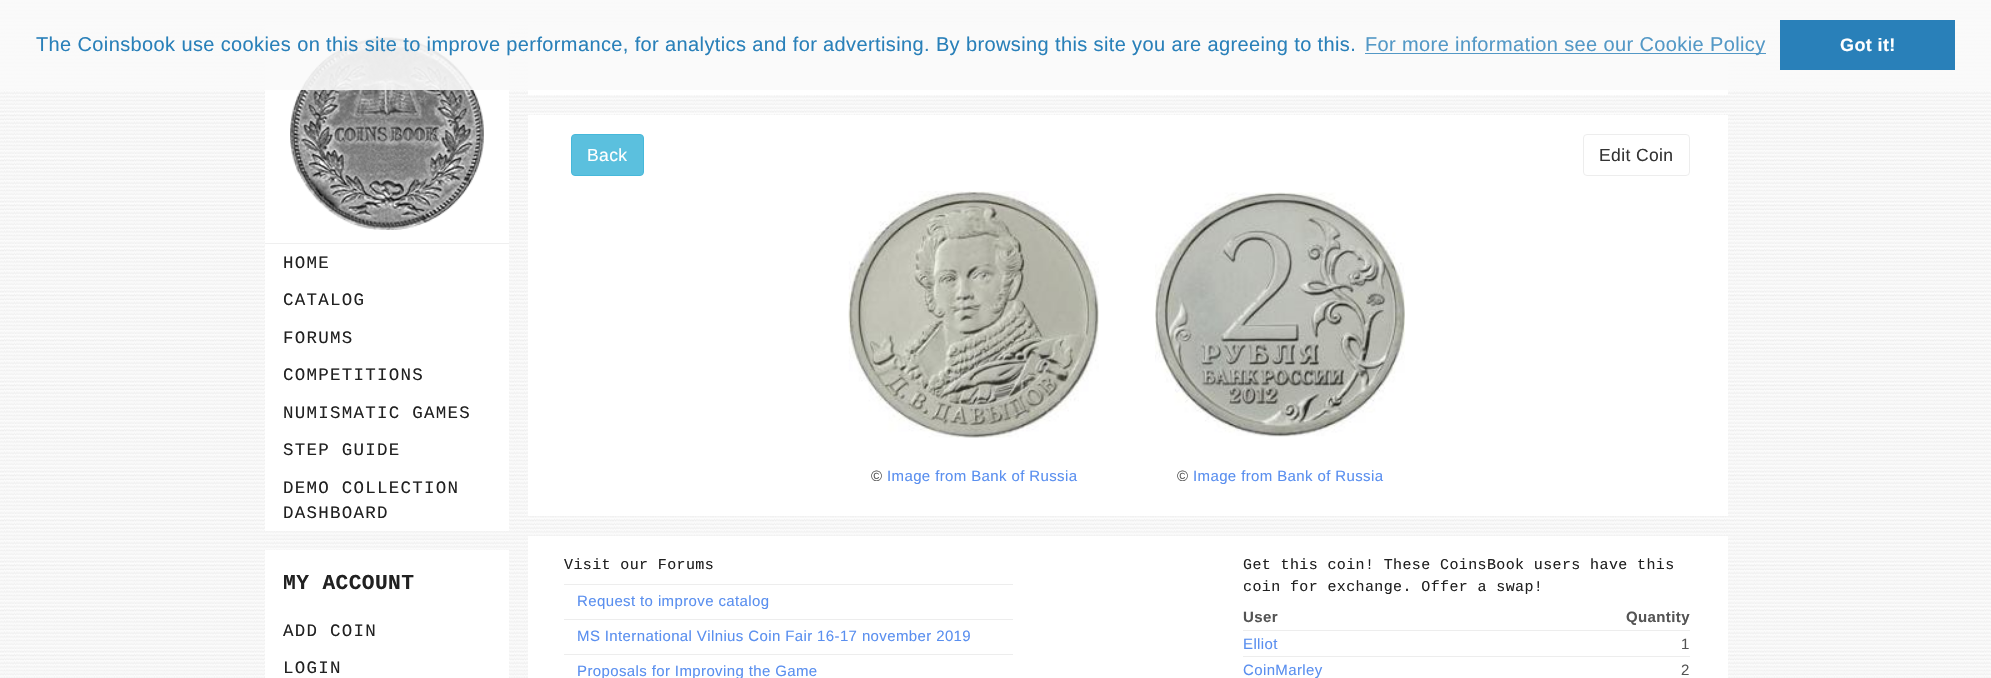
void draw(SkCanvas* canvas) {
  SkPaint paint;
  paint.setAntiAlias(true);
  auto face = [&](const char* family, int weight, float size, bool italic = false) {
    SkFontStyle style(weight, SkFontStyle::kNormal_Width,
      italic ? SkFontStyle::kItalic_Slant : SkFontStyle::kUpright_Slant);
    SkFont result(fontMgr->matchFamilyStyle(family, style), size);
    result.setSubpixel(true);
    return result;
  };
  auto writeSpaced = [&](const char* s, float x, float y, const SkFont& font, const SkPaint& ink, float letter, float word) {
    std::vector<SkGlyphID> glyphs(font.countText(s, strlen(s), SkTextEncoding::kUTF8));
    std::vector<float> xs(glyphs.size());
    font.textToGlyphs(s, strlen(s), SkTextEncoding::kUTF8, glyphs);
    font.getXPos(glyphs, xs, x);
    float extra = 0;
    for (size_t i = 0; i < glyphs.size(); i++) {
      xs[i] += extra;
      extra += letter + word * (glyphs[i] == font.unicharToGlyph(' '));
    }
    canvas->drawTextBlob(SkTextBlob::MakeFromPosHGlyphs(glyphs, xs, y, font), 0, 0, ink);
  };
  auto paste = [&](const char* path, float x, float y, float w, float h) {
    auto image = SkImages::DeferredFromEncodedData(SkData::MakeFromFileName(path));
    canvas->drawImageRect(image, SkRect::MakeXYWH(x, y, w, h), SkSamplingOptions());
  };
  canvas->clear(0xffffffff);
  paste("img/1.png", 0, 0, 1991, 678);
  paint.setColor(0xffffffff);
  canvas->drawRect(SkRect::MakeXYWH(265, 25, 244, 218), paint);
  paste("img/2.png", 290, 37, 194, 193);
  {
    const struct { float x, y, w, h; SkColor color; } items[] = {
      {528, 25, 1200, 70, 0xffffffff},
      {0, 0, 1991, 90, 0xe6fafafa},
      {1365, 53, 401, 1, 0xff5398c6},
      {1780, 20, 175, 50, 0xff2980b9},
      {265, 243, 244, 1, 0xffefefef},
      {265, 244, 244, 287, 0xffffffff},
      {265, 550, 244, 128, 0xffffffff},
      {528, 115, 1200, 401, 0xffffffff},
    };
    for (auto [x, y, w, h, color] : items) {
      paint.setColor(color);
      canvas->drawRect(SkRect::MakeXYWH(x, y, w, h), paint);
    }
  }
  paint.setColor(0xff5bc0de);
  canvas->drawRoundRect(SkRect::MakeXYWH(571.5f, 134.5f, 72, 41), 3.5f, 3.5f, paint);
  paint.setStroke(true);
  paint.setStrokeWidth(1);
  paint.setColor(0xff46b8da);
  canvas->drawRoundRect(SkRect::MakeXYWH(571.5f, 134.5f, 72, 41), 3.5f, 3.5f, paint);
  paint.setColor(0xffededed);
  canvas->drawRoundRect(SkRect::MakeXYWH(1583.5f, 134.5f, 106, 41), 3.5f, 3.5f, paint);
  paste("img/3.png", 848, 191, 251, 247);
  paste("img/4.png", 1155, 192, 250, 245);
  paint.setStroke(false);
  {
    const struct { float x, y, w, h; SkColor color; } items[] = {
      {528, 536, 1200, 142, 0xffffffff},
      {564, 584, 449, 1, 0xffededed},
      {564, 619, 449, 1, 0xffededed},
      {564, 654, 449, 1, 0xffededed},
      {1243, 630, 447, 1, 0xffededed},
      {1243, 656, 447, 1, 0xffededed},
    };
    for (auto [x, y, w, h, color] : items) {
      paint.setColor(color);
      canvas->drawRect(SkRect::MakeXYWH(x, y, w, h), paint);
    }
  }
  auto f0 = face("Liberation Sans", 400, 20);
  paint.setColor(0xff2980b9);
  writeSpaced("The Coinsbook use cookies on this site to improve performance, for analytics and for advertising. By browsing this site you are agreeing to this.", 36, 51, f0, paint, 0.38f, 0);
  paint.setColor(0xff5398c6);
  writeSpaced("For more information see our Cookie Policy", 1365, 51, f0, paint, 0.38f, 0);
  auto f1 = face("Liberation Sans", 700, 18);
  paint.setColor(0xffffffff);
  writeSpaced("Got it!", 1840, 51, f1, paint, 0.38f, 0);
  auto f2 = face("Liberation Mono", 400, 17.5f);
  paint.setColor(0xff212121);
  {
    const struct { const char* s; float x, y; } items[] = {
      {"HOME", 283, 268},
      {"CATALOG", 283, 305},
      {"FORUMS", 283, 343},
      {"COMPETITIONS", 283, 380},
      {"NUMISMATIC GAMES", 283, 418},
      {"STEP GUIDE", 283, 455},
      {"DEMO COLLECTION", 283, 493},
      {"DASHBOARD", 283, 518},
    };
    for (auto [s, x, y] : items) {
      writeSpaced(s, x, y, f2, paint, 1.25f, 0);
    }
  }
  auto f3 = face("Liberation Mono", 700, 21.25f);
  writeSpaced("MY ACCOUNT", 283, 589, f3, paint, 0.38f, 0);
  writeSpaced("ADD COIN", 283, 636, f2, paint, 1.25f, 0);
  writeSpaced("LOGIN", 283, 673, f2, paint, 1.25f, 0);
  auto f4 = face("Liberation Sans", 400, 17.5f);
  paint.setColor(0xffffffff);
  writeSpaced("Back", 587, 161, f4, paint, 0.38f, 0);
  paint.setColor(0xff333333);
  writeSpaced("Edit Coin", 1599, 161, f4, paint, 0.38f, 0);
  auto f5 = face("Liberation Sans", 400, 15);
  paint.setColor(0xff545454);
  writeSpaced("©", 871, 481, f5, paint, 0.38f, 0);
  paint.setColor(0xff5a8fef);
  writeSpaced("Image from Bank of Russia", 887, 481, f5, paint, 0.38f, 0);
  paint.setColor(0xff545454);
  writeSpaced("©", 1177, 481, f5, paint, 0.38f, 0);
  paint.setColor(0xff5a8fef);
  writeSpaced("Image from Bank of Russia", 1193, 481, f5, paint, 0.38f, 0);
  auto f6 = face("Liberation Mono", 400, 15);
  paint.setColor(0xff212121);
  writeSpaced("Visit our Forums", 564, 569, f6, paint, 0.38f, 0);
  paint.setColor(0xff5a8fef);
  {
    const struct { const char* s; float x, y; } items[] = {
      {"Request to improve catalog", 577, 606},
      {"MS International Vilnius Coin Fair 16-17 november 2019", 577, 641},
      {"Proposals for Improving the Game", 577, 676},
    };
    for (auto [s, x, y] : items) {
      writeSpaced(s, x, y, f5, paint, 0.38f, 0);
    }
  }
  paint.setColor(0xff212121);
  writeSpaced("Get this coin! These CoinsBook users have this", 1243, 569, f6, paint, 0.38f, 0);
  writeSpaced("coin for exchange. Offer a swap!", 1243, 591, f6, paint, 0.38f, 0);
  auto f7 = face("Liberation Sans", 700, 15);
  paint.setColor(0xff545454);
  writeSpaced("User", 1243, 622, f7, paint, 0.38f, 0);
  writeSpaced("Quantity", 1626, 622, f7, paint, 0.38f, 0);
  paint.setColor(0xff5a8fef);
  writeSpaced("Elliot", 1243, 649, f5, paint, 0.38f, 0);
  paint.setColor(0xff545454);
  writeSpaced("1", 1681, 649, f5, paint, 0.38f, 0);
  paint.setColor(0xff5a8fef);
  writeSpaced("CoinMarley", 1243, 675, f5, paint, 0.38f, 0);
  paint.setColor(0xff545454);
  writeSpaced("2", 1681, 675, f5, paint, 0.38f, 0);
}
